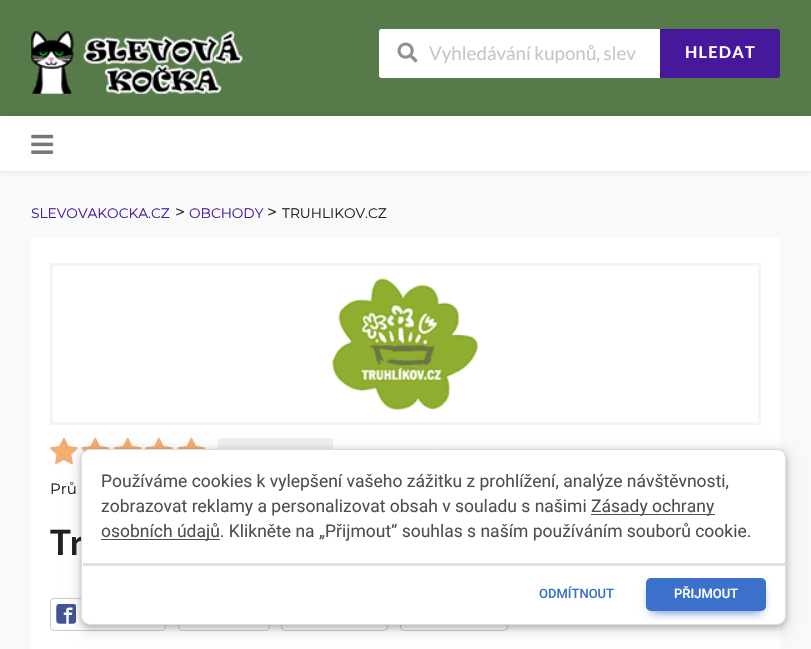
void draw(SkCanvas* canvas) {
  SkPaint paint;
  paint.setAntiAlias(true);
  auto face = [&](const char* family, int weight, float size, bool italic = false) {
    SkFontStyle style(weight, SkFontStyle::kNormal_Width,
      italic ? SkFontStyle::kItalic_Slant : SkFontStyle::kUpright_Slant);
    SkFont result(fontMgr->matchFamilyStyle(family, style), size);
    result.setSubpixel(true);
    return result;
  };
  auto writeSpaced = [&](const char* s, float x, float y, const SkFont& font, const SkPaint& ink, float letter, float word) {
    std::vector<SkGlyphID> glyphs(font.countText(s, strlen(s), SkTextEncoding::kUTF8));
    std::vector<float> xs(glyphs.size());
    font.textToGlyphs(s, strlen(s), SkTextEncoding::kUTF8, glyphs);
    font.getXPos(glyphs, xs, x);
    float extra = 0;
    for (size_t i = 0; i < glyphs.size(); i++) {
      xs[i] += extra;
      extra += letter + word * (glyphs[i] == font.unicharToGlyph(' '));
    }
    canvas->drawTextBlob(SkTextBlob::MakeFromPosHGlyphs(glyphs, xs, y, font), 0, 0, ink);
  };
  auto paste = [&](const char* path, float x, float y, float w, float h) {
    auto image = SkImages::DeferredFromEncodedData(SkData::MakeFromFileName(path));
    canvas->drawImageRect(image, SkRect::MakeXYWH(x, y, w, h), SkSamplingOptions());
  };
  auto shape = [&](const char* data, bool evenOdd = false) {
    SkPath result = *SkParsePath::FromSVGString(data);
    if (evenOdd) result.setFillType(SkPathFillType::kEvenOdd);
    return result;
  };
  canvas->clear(0xfff8f9f9);
  paint.setColor(0xff567a49);
  canvas->drawRect(SkRect::MakeXYWH(0, 0, 811, 116), paint);
  paste("img/1.png", 31, 31, 212, 63);
  paint.setColor(0xffffffff);
  canvas->drawPath(shape("M381.5 29H660V78H381.5C380 78 379 77 379 75.5V31.5C379 30 380 29 381.5 29Z"), paint);
  paste("img/2.png", 397, 42, 21, 21);
  paint.setColor(0xff46189b);
  canvas->drawPath(shape("M660 29H777.5C779 29 780 30 780 31.5V75.5C780 77 779 78 777.5 78H660Z"), paint);
  paint.setColor(0x1f000000);
  paint.setMaskFilter(SkMaskFilter::MakeBlur(kNormal_SkBlurStyle, 3));
  canvas->drawRect(SkRect::MakeXYWH(0, 116, 811, 55), paint);
  paint.setMaskFilter(nullptr);
  paint.setColor(0xffffffff);
  canvas->drawRect(SkRect::MakeXYWH(0, 116, 811, 55), paint);
  paste("img/3.png", 31, 134, 23, 20);
  canvas->drawRect(SkRect::MakeXYWH(31, 238, 749, 411), paint);
  paint.setStroke(true);
  paint.setStrokeWidth(3);
  paint.setColor(0xfff5f5f5);
  canvas->drawRect(SkRect::MakeXYWH(51.5f, 264.5f, 708, 159), paint);
  paste("img/4.png", 332, 278, 146, 133);
  paste("img/5.png", 50, 437, 28, 28);
  paste("img/6.png", 81, 437, 28, 15);
  paste("img/7.png", 113, 437, 29, 12);
  paste("img/8.png", 145, 437, 28, 12);
  paste("img/9.png", 177, 437, 29, 12);
  paint.setStroke(false);
  paint.setColor(0xfff0f0f0);
  canvas->drawRoundRect(SkRect::MakeXYWH(218, 438, 115, 30), 4, 4, paint);
  paint.setStroke(true);
  paint.setStrokeWidth(1);
  paint.setColor(0xffcccccc);
  canvas->drawRoundRect(SkRect::MakeXYWH(50.5f, 598.5f, 115, 32), 3.5f, 3.5f, paint);
  paste("img/10.png", 56, 604, 20, 20);
  canvas->drawRoundRect(SkRect::MakeXYWH(178.5f, 598.5f, 91, 32), 3.5f, 3.5f, paint);
  canvas->drawRoundRect(SkRect::MakeXYWH(281.5f, 598.5f, 106, 32), 3.5f, 3.5f, paint);
  canvas->drawRoundRect(SkRect::MakeXYWH(400.5f, 598.5f, 107, 32), 3.5f, 3.5f, paint);
  paint.setStroke(false);
  paint.setColor(0x0d000000);
  paint.setMaskFilter(SkMaskFilter::MakeBlur(kNormal_SkBlurStyle, 6));
  canvas->drawRoundRect(SkRect::MakeXYWH(75, 446, 718, 189), 15, 15, paint);
  paint.setMaskFilter(nullptr);
  paint.setColor(0x40000000);
  paint.setMaskFilter(SkMaskFilter::MakeBlur(kNormal_SkBlurStyle, 3));
  canvas->drawRoundRect(SkRect::MakeXYWH(81, 451, 705, 177), 9, 9, paint);
  paint.setMaskFilter(nullptr);
  auto f0 = face("Lato", 400, 18.75f);
  paint.setColor(0xffc7c7c7);
  canvas->drawString("Vyhledávání kupon", 429, 60, f0, paint);
  auto f1 = face("Liberation Sans", 400, 18.75f);
  canvas->drawString("ů", 586, 60, f1, paint);
  canvas->drawString(", slev", 596, 60, f0, paint);
  auto f2 = face("Lato", 700, 16.25f);
  paint.setColor(0xffffffff);
  writeSpaced("HLEDAT", 685, 58, f2, paint, 1.25f, 0);
  auto f3 = face("Montserrat", 400, 13.75f);
  paint.setColor(0xff46189b);
  canvas->drawString("SLEVOVAKOCKA.CZ", 31, 218, f3, paint);
  auto f4 = face("Montserrat", 400, 17.5f);
  paint.setColor(0xff202020);
  canvas->drawString(">", 175, 218, f4, paint);
  paint.setColor(0xff46189b);
  canvas->drawString("OBCHODY", 189, 218, f3, paint);
  paint.setColor(0xff202020);
  canvas->drawString(">", 267, 218, f4, paint);
  canvas->drawString("TRUHLIKOV.CZ", 282, 218, f3, paint);
  auto f5 = face("Montserrat", 400, 15);
  canvas->drawString("Prů", 50, 494, f5, paint);
  auto f6 = face("Lato", 700, 35);
  writeSpaced("Tr", 50, 555, f6, paint, -1, 0);
  paint.setColor(0xffffffff);
  canvas->drawRoundRect(SkRect::MakeXYWH(81.5f, 449.5f, 704, 175), 8.5f, 8.5f, paint);
  paint.setStroke(true);
  paint.setColor(0xffdddddd);
  canvas->drawRoundRect(SkRect::MakeXYWH(81.5f, 449.5f, 704, 175), 8.5f, 8.5f, paint);
  auto f7 = face("Roboto", 400, 17.5f);
  paint.setStroke(false);
  paint.setColor(0xff4f4f4f);
  canvas->drawString("Používáme cookies k vylepšení vašeho zážitku z prohlížení, analýze návštěvnosti,", 101, 487, f7, paint);
  canvas->drawString("zobrazovat reklamy a personalizovat obsah v souladu s našimi", 101, 512, f7, paint);
  canvas->drawRect(SkRect::MakeXYWH(591, 514, 124, 1), paint);
  canvas->drawString("Zásady ochrany", 591, 512, f7, paint);
  canvas->drawRect(SkRect::MakeXYWH(101, 539, 119, 1), paint);
  canvas->drawString("osobních údajů. Klikněte na „Přijmout“ souhlas s naším používáním souborů cookie.", 101, 537, f7, paint);
  paint.setColor(0xffe1e1e1);
  canvas->drawRect(SkRect::MakeXYWH(83, 563, 702, 3), paint);
  auto f8 = face("Roboto", 500, 13);
  paint.setColor(0xff3b71ca);
  canvas->drawString("ODMÍTNOUT", 539, 598, f8, paint);
  paint.setColor(0xff386bc0);
  paint.setMaskFilter(SkMaskFilter::MakeBlur(kNormal_SkBlurStyle, 5.5f));
  canvas->drawRect(SkRect::MakeXYWH(651, 588, 110, 23), paint);
  paint.setMaskFilter(nullptr);
  paint.setColor(0xff3b71ca);
  canvas->drawRoundRect(SkRect::MakeXYWH(646, 578, 120, 33), 5, 5, paint);
  paint.setColor(0xffffffff);
  canvas->drawString("PŘIJMOUT", 674, 598, f8, paint);
}
